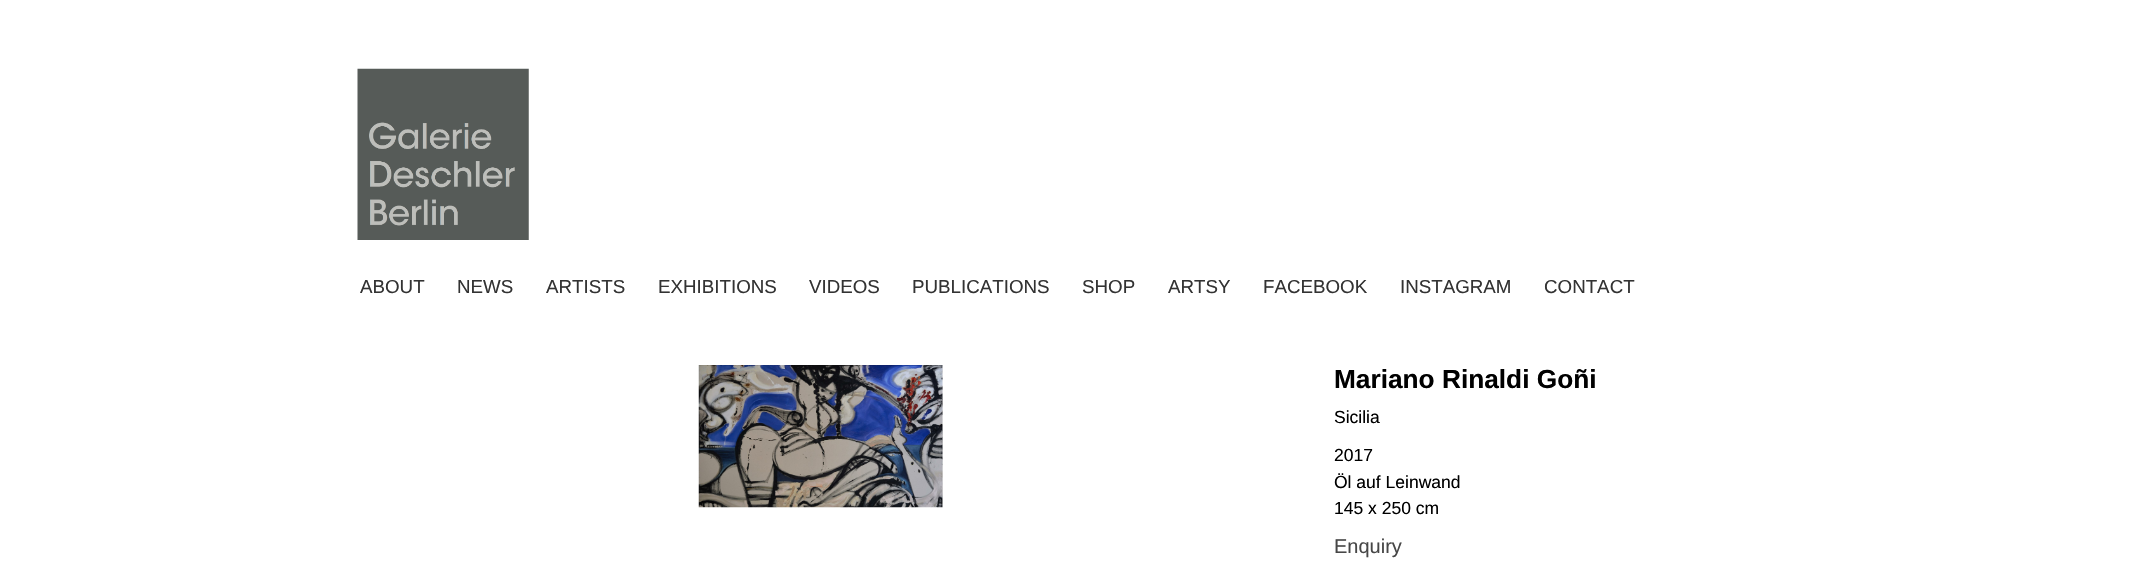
void draw(SkCanvas* canvas) {
  SkPaint paint;
  paint.setAntiAlias(true);
  auto face = [&](const char* family, int weight, float size, bool italic = false) {
    SkFontStyle style(weight, SkFontStyle::kNormal_Width,
      italic ? SkFontStyle::kItalic_Slant : SkFontStyle::kUpright_Slant);
    SkFont result(fontMgr->matchFamilyStyle(family, style), size);
    result.setSubpixel(true);
    return result;
  };
  auto paste = [&](const char* path, float x, float y, float w, float h) {
    auto image = SkImages::DeferredFromEncodedData(SkData::MakeFromFileName(path));
    canvas->drawImageRect(image, SkRect::MakeXYWH(x, y, w, h), SkSamplingOptions());
  };
  canvas->clear(0xffffffff);
  paste("img/1.png", 357, 68, 172, 172);
  paste("img/2.png", 698, 365, 245, 143);
  auto f0 = face("Liberation Sans", 400, 18.75f);
  paint.setColor(0xff333333);
  {
    const struct { const char* s; float x, y; } items[] = {
      {"ABOUT", 360, 293},
      {"NEWS", 457, 293},
      {"ARTISTS", 546, 293},
      {"EXHIBITIONS", 658, 293},
      {"VIDEOS", 809, 293},
      {"PUBLICATIONS", 912, 293},
      {"SHOP", 1082, 293},
      {"ARTSY", 1168, 293},
      {"FACEBOOK", 1263, 293},
      {"INSTAGRAM", 1400, 293},
      {"CONTACT", 1544, 293},
    };
    for (auto [s, x, y] : items) {
      canvas->drawString(s, x, y, f0, paint);
    }
  }
  auto f1 = face("Liberation Sans", 700, 26.25f);
  paint.setColor(0xff000000);
  canvas->drawString("Mariano Rinaldi Goñi", 1334, 388, f1, paint);
  auto f2 = face("Liberation Sans", 400, 17.5f);
  {
    const struct { const char* s; float x, y; } items[] = {
      {"Sicilia", 1334, 423},
      {"2017", 1334, 461},
      {"Öl auf Leinwand", 1334, 488},
      {"145 x 250 cm", 1334, 514},
    };
    for (auto [s, x, y] : items) {
      canvas->drawString(s, x, y, f2, paint);
    }
  }
  auto f3 = face("Liberation Sans", 400, 20);
  paint.setColor(0xff474747);
  canvas->drawString("Enquiry", 1334, 553, f3, paint);
}
